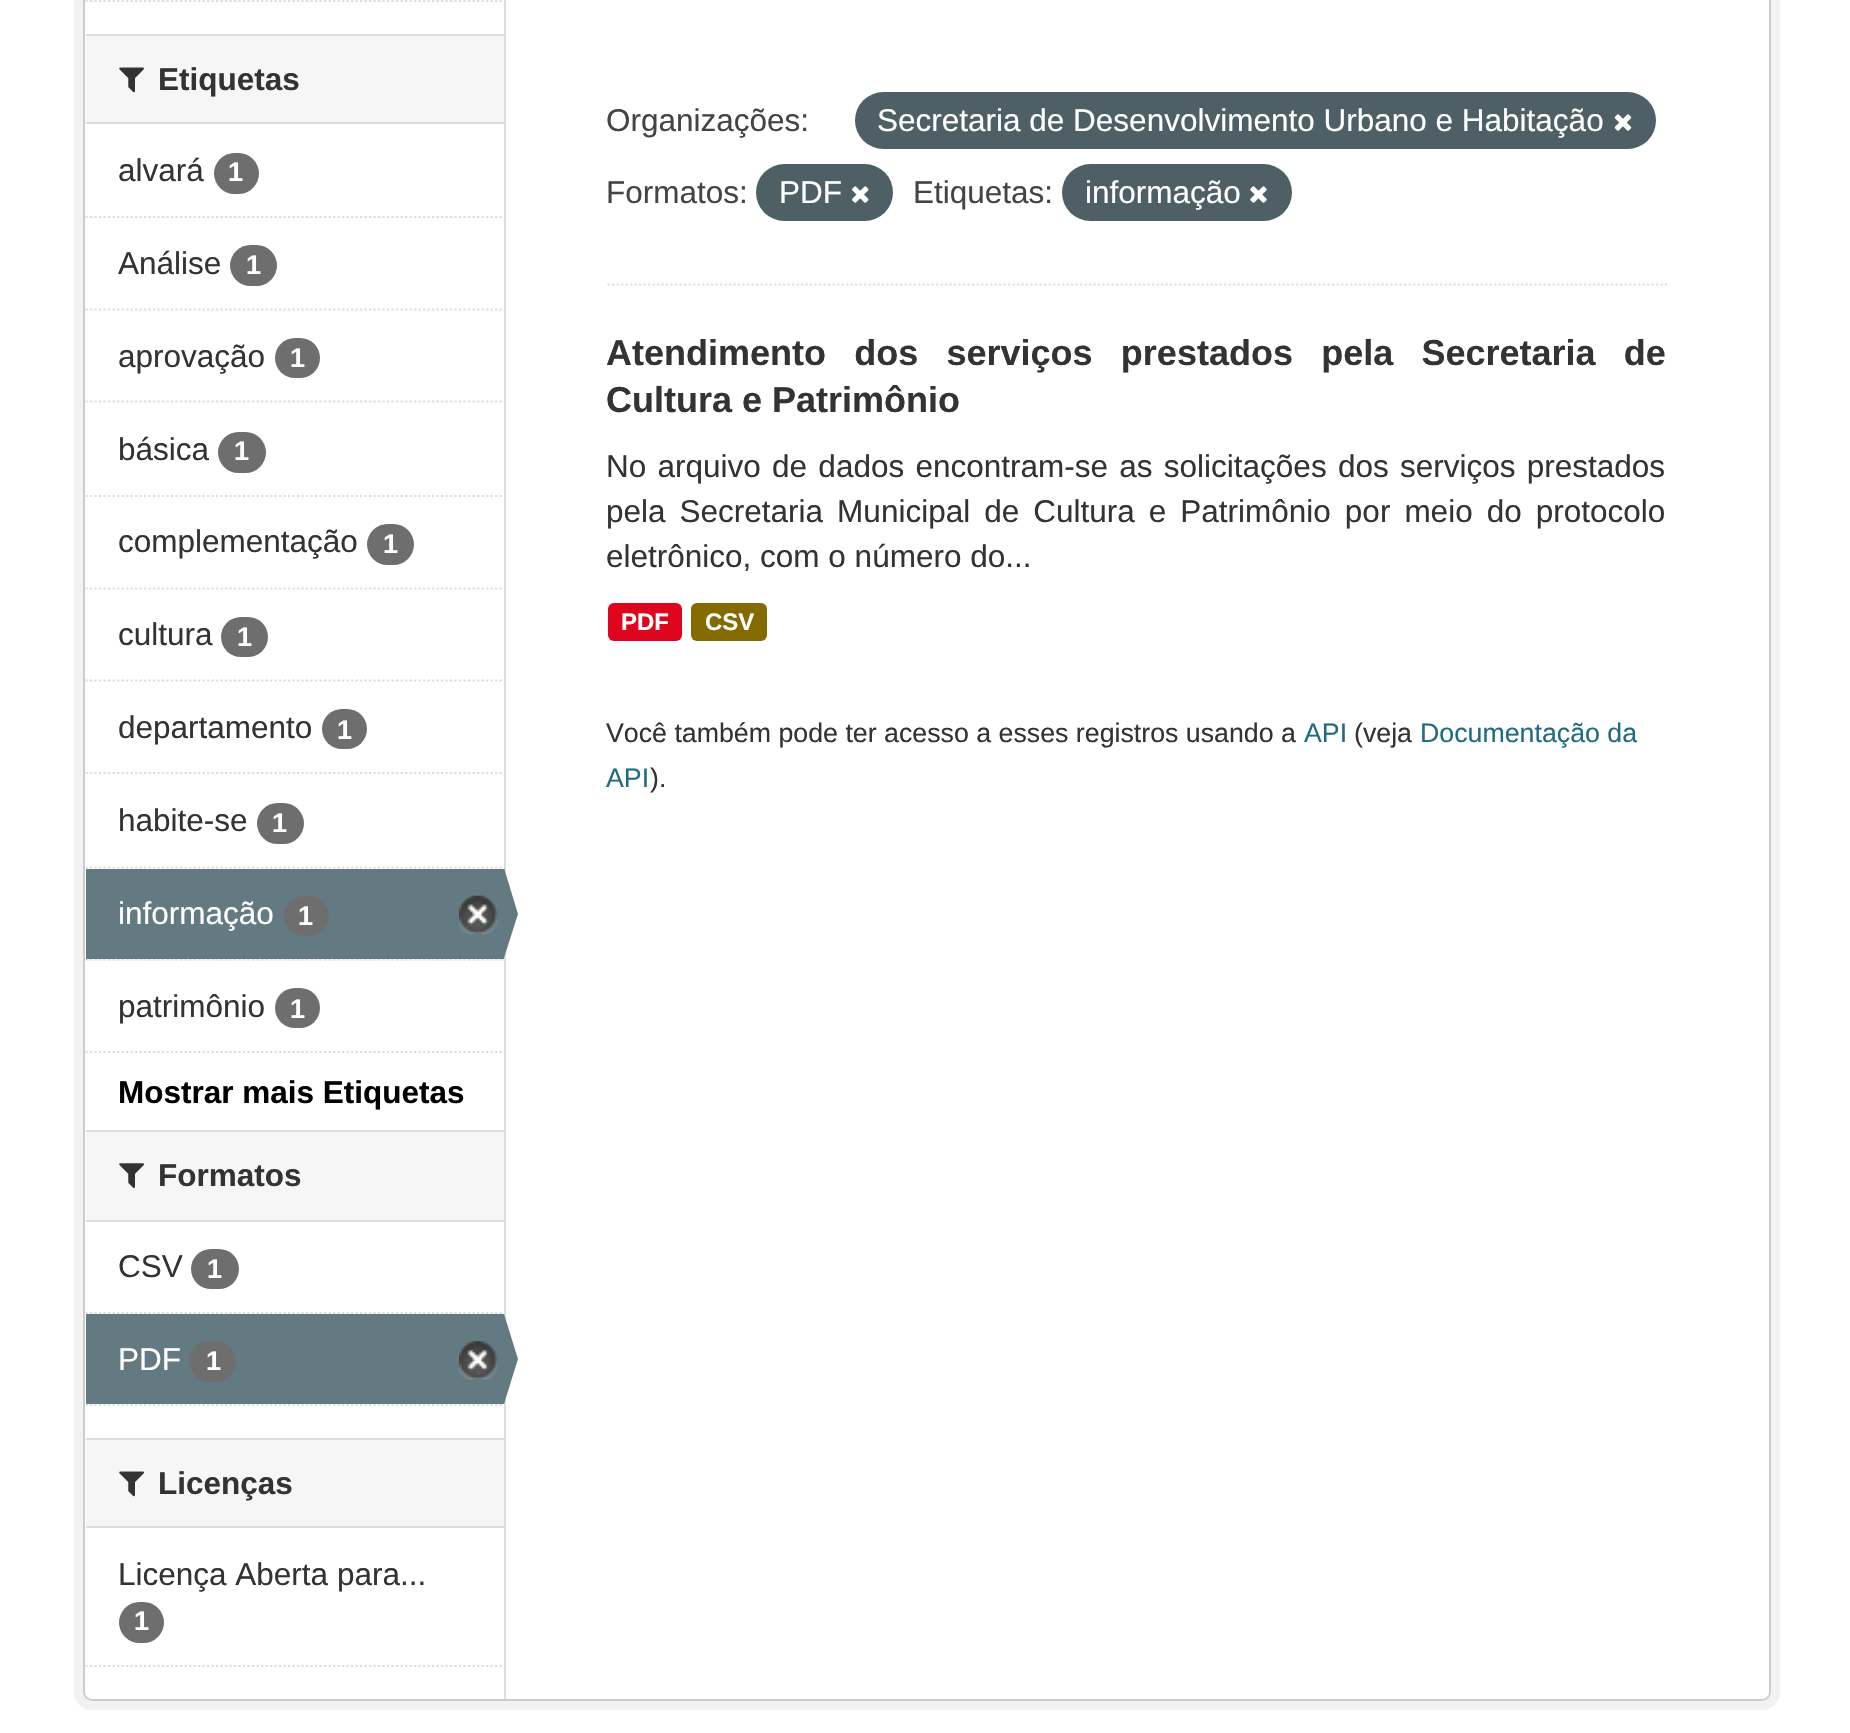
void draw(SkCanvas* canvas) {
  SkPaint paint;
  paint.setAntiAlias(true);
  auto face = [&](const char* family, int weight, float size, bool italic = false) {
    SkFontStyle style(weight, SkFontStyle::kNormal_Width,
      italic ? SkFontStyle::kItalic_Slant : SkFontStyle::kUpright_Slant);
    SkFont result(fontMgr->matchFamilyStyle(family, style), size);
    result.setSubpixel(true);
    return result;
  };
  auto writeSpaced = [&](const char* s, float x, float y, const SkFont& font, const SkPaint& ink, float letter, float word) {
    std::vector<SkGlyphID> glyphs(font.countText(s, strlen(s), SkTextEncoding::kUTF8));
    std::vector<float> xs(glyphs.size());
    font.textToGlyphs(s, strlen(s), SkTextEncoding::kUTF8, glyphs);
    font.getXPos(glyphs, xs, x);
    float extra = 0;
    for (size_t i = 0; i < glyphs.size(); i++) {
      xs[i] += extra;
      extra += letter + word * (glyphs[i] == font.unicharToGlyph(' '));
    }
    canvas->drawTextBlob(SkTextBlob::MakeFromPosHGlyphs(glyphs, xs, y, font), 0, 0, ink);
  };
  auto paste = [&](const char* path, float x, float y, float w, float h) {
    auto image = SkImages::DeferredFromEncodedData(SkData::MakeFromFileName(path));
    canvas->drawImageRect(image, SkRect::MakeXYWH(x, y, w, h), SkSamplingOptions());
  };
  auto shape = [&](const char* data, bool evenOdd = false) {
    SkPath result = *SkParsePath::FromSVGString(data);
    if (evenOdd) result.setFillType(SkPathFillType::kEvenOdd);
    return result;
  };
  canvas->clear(0xffffffff);
  paint.setStroke(true);
  paint.setStrokeWidth(9);
  paint.setColor(0xfff2f2f2);
  canvas->drawRoundRect(SkRect::MakeXYWH(78.5f, -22.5f, 1697, 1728), 13.5f, 13.5f, paint);
  paint.setStroke(false);
  paint.setColor(0xffffffff);
  canvas->drawRoundRect(SkRect::MakeXYWH(84, -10, 1686, 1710), 8, 8, paint);
  paint.setStroke(true);
  paint.setStrokeWidth(2);
  paint.setColor(0xffcccccc);
  canvas->drawRoundRect(SkRect::MakeXYWH(84, -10, 1686, 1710), 8, 8, paint);
  paint.setStrokeWidth(2.2f);
  paint.setColor(0xffdddddd);
  paint.setPathEffect(SkDashPathEffect::Make({{2.25f, 2.25f}}, 0));
  canvas->drawPath(shape("M85.5 1H504"), paint);
  paint.setPathEffect(nullptr);
  paint.setStroke(false);
  {
    const struct { float x, y, w, h; SkColor color; } items[] = {
      {86, 36, 418, 86, 0xfff6f6f6},
      {86, 34, 418, 2, 0xffdddddd},
      {86, 122, 418, 2, 0xffdddddd},
    };
    for (auto [x, y, w, h, color] : items) {
      paint.setColor(color);
      canvas->drawRect(SkRect::MakeXYWH(x, y, w, h), paint);
    }
  }
  paste("img/1.png", 119, 67, 25, 26);
  paint.setStroke(true);
  paint.setPathEffect(SkDashPathEffect::Make({{2.25f, 2.25f}}, 0));
  canvas->drawPath(shape("M85.5 217H504"), paint);
  paint.setPathEffect(nullptr);
  paint.setStroke(false);
  paint.setColor(0xff6e6e6e);
  canvas->drawRoundRect(SkRect::MakeXYWH(214, 153, 45, 41), 20.5f, 20.5f, paint);
  paint.setStroke(true);
  paint.setColor(0xffdddddd);
  paint.setPathEffect(SkDashPathEffect::Make({{2.25f, 2.25f}}, 0));
  canvas->drawPath(shape("M85.5 309.5H504"), paint);
  paint.setPathEffect(nullptr);
  paint.setStroke(false);
  paint.setColor(0xff6e6e6e);
  canvas->drawRoundRect(SkRect::MakeXYWH(230, 245, 47, 41), 20.5f, 20.5f, paint);
  paint.setStroke(true);
  paint.setColor(0xffdddddd);
  paint.setPathEffect(SkDashPathEffect::Make({{2.25f, 2.25f}}, 0));
  canvas->drawPath(shape("M85.5 401.5H504"), paint);
  paint.setPathEffect(nullptr);
  paint.setStroke(false);
  paint.setColor(0xff6e6e6e);
  canvas->drawRoundRect(SkRect::MakeXYWH(275, 338, 45, 40), 20, 20, paint);
  paint.setStroke(true);
  paint.setColor(0xffdddddd);
  paint.setPathEffect(SkDashPathEffect::Make({{2.25f, 2.25f}}, 0));
  canvas->drawPath(shape("M85.5 496H504"), paint);
  paint.setPathEffect(nullptr);
  paint.setStroke(false);
  paint.setColor(0xff6e6e6e);
  canvas->drawRoundRect(SkRect::MakeXYWH(218, 432, 48, 41), 20.5f, 20.5f, paint);
  paint.setStroke(true);
  paint.setColor(0xffdddddd);
  paint.setPathEffect(SkDashPathEffect::Make({{2.25f, 2.25f}}, 0));
  canvas->drawPath(shape("M85.5 588.5H504"), paint);
  paint.setPathEffect(nullptr);
  paint.setStroke(false);
  paint.setColor(0xff6e6e6e);
  canvas->drawRoundRect(SkRect::MakeXYWH(367, 524, 47, 41), 20.5f, 20.5f, paint);
  paint.setStroke(true);
  paint.setColor(0xffdddddd);
  paint.setPathEffect(SkDashPathEffect::Make({{2.25f, 2.25f}}, 0));
  canvas->drawPath(shape("M85.5 680.5H504"), paint);
  paint.setPathEffect(nullptr);
  paint.setStroke(false);
  paint.setColor(0xff6e6e6e);
  canvas->drawRoundRect(SkRect::MakeXYWH(221, 617, 47, 40), 20, 20, paint);
  paint.setStroke(true);
  paint.setColor(0xffdddddd);
  paint.setPathEffect(SkDashPathEffect::Make({{2.25f, 2.25f}}, 0));
  canvas->drawPath(shape("M85.5 773H504"), paint);
  paint.setPathEffect(nullptr);
  paint.setStroke(false);
  paint.setColor(0xff6e6e6e);
  canvas->drawRoundRect(SkRect::MakeXYWH(322, 709, 45, 40), 20, 20, paint);
  paint.setStroke(true);
  paint.setColor(0xffdddddd);
  paint.setPathEffect(SkDashPathEffect::Make({{2.25f, 2.25f}}, 0));
  canvas->drawPath(shape("M85.5 867.5H504"), paint);
  paint.setPathEffect(nullptr);
  paint.setStroke(false);
  paint.setColor(0xff6e6e6e);
  canvas->drawRoundRect(SkRect::MakeXYWH(257, 803, 47, 41), 20.5f, 20.5f, paint);
  paint.setColor(0xfff6f6f6);
  canvas->drawRect(SkRect::MakeXYWH(86, 959, 418, 2), paint);
  paint.setStroke(true);
  paint.setColor(0xffdddddd);
  paint.setPathEffect(SkDashPathEffect::Make({{2.25f, 2.25f}}, 0));
  canvas->drawPath(shape("M85.5 959.5H504"), paint);
  paint.setPathEffect(nullptr);
  paint.setStroke(false);
  paint.setColor(0xff647a82);
  canvas->drawRect(SkRect::MakeXYWH(86, 869, 418, 90), paint);
  paint.setColor(0xff6e6e6e);
  canvas->drawRoundRect(SkRect::MakeXYWH(284, 896, 45, 40), 20, 20, paint);
  paste("img/2.png", 459, 895, 39, 39);
  paint.setColor(0xffdddddd);
  canvas->drawRect(SkRect::MakeXYWH(504, 0, 2, 1699), paint);
  paint.setColor(0xff647a82);
  canvas->drawPath(shape("M504 958V868L518 914Z"), paint);
  paint.setColor(0xff6e6e6e);
  canvas->drawRoundRect(SkRect::MakeXYWH(275, 988, 45, 40), 20, 20, paint);
  paint.setStroke(true);
  paint.setColor(0xffdddddd);
  paint.setPathEffect(SkDashPathEffect::Make({{2.25f, 2.25f}}, 0));
  canvas->drawPath(shape("M85.5 1052H504"), paint);
  paint.setPathEffect(nullptr);
  paint.setStroke(false);
  {
    const struct { float x, y, w, h; SkColor color; } items[] = {
      {86, 1132, 418, 88, 0xfff6f6f6},
      {86, 1130, 418, 2, 0xffdddddd},
      {86, 1220, 418, 2, 0xffdddddd},
    };
    for (auto [x, y, w, h, color] : items) {
      paint.setColor(color);
      canvas->drawRect(SkRect::MakeXYWH(x, y, w, h), paint);
    }
  }
  paste("img/3.png", 119, 1163, 25, 25);
  paint.setStroke(true);
  paint.setPathEffect(SkDashPathEffect::Make({{2.25f, 2.25f}}, 0));
  canvas->drawPath(shape("M85.5 1313H504"), paint);
  paint.setPathEffect(nullptr);
  paint.setStroke(false);
  paint.setColor(0xff6e6e6e);
  canvas->drawRoundRect(SkRect::MakeXYWH(191, 1249, 48, 40), 20, 20, paint);
  paint.setStroke(true);
  paint.setColor(0xffdddddd);
  paint.setPathEffect(SkDashPathEffect::Make({{2.25f, 2.25f}}, 0));
  canvas->drawPath(shape("M85.5 1405H504"), paint);
  paint.setPathEffect(nullptr);
  paint.setStroke(false);
  paint.setColor(0xff647a82);
  canvas->drawRect(SkRect::MakeXYWH(86, 1314, 418, 90), paint);
  paint.setColor(0xff6e6e6e);
  canvas->drawRoundRect(SkRect::MakeXYWH(189, 1341, 47, 41), 20.5f, 20.5f, paint);
  paste("img/4.png", 459, 1341, 39, 39);
  paint.setColor(0xff647a82);
  canvas->drawPath(shape("M504 1404V1314L518 1359Z"), paint);
  {
    const struct { float x, y, w, h; SkColor color; } items[] = {
      {86, 1440, 418, 86, 0xfff6f6f6},
      {86, 1438, 418, 2, 0xffdddddd},
      {86, 1526, 418, 2, 0xffdddddd},
    };
    for (auto [x, y, w, h, color] : items) {
      paint.setColor(color);
      canvas->drawRect(SkRect::MakeXYWH(x, y, w, h), paint);
    }
  }
  paste("img/1.png", 119, 1471, 25, 26);
  paint.setColor(0xff6e6e6e);
  canvas->drawRoundRect(SkRect::MakeXYWH(119, 1602, 45, 41), 20.5f, 20.5f, paint);
  paint.setStroke(true);
  paint.setColor(0xffdddddd);
  paint.setPathEffect(SkDashPathEffect::Make({{2.25f, 2.25f}}, 0));
  canvas->drawPath(shape("M85.5 1666H504"), paint);
  paint.setPathEffect(nullptr);
  paint.setPathEffect(SkDashPathEffect::Make({{2.25f, 2.25f}}, 0));
  canvas->drawPath(shape("M607.5 284.5H1667"), paint);
  paint.setPathEffect(nullptr);
  paint.setStroke(false);
  paint.setColor(0xff4e5f65);
  canvas->drawRoundRect(SkRect::MakeXYWH(855, 92, 801, 57), 28.5f, 28.5f, paint);
  paste("img/5.png", 1614, 114, 18, 17);
  canvas->drawRoundRect(SkRect::MakeXYWH(756, 164, 137, 57), 28.5f, 28.5f, paint);
  paste("img/6.png", 852, 186, 17, 17);
  canvas->drawRoundRect(SkRect::MakeXYWH(1062, 164, 230, 57), 28.5f, 28.5f, paint);
  paste("img/7.png", 1250, 186, 17, 17);
  paint.setColor(0xffe0051e);
  canvas->drawRoundRect(SkRect::MakeXYWH(608, 603, 74, 38), 6, 6, paint);
  paint.setColor(0xff856a00);
  canvas->drawRoundRect(SkRect::MakeXYWH(691, 603, 76, 38), 6, 6, paint);
  auto f0 = face("Liberation Sans", 700, 31.5f);
  paint.setColor(0xff333333);
  canvas->drawString("Etiquetas", 158, 90, f0, paint);
  auto f1 = face("Liberation Sans", 400, 31.5f);
  canvas->drawString("alvará", 118, 181, f1, paint);
  auto f2 = face("Liberation Sans", 700, 27);
  paint.setColor(0xffffffff);
  canvas->drawString("1", 228, 181, f2, paint);
  paint.setColor(0xff333333);
  canvas->drawString("Análise", 118, 274, f1, paint);
  paint.setColor(0xffffffff);
  canvas->drawString("1", 246, 274, f2, paint);
  paint.setColor(0xff333333);
  canvas->drawString("aprovação", 118, 367, f1, paint);
  paint.setColor(0xffffffff);
  canvas->drawString("1", 290, 367, f2, paint);
  paint.setColor(0xff333333);
  canvas->drawString("básica", 118, 460, f1, paint);
  paint.setColor(0xffffffff);
  canvas->drawString("1", 234, 460, f2, paint);
  paint.setColor(0xff333333);
  canvas->drawString("complementação", 118, 552, f1, paint);
  paint.setColor(0xffffffff);
  canvas->drawString("1", 383, 553, f2, paint);
  paint.setColor(0xff333333);
  canvas->drawString("cultura", 118, 645, f1, paint);
  paint.setColor(0xffffffff);
  canvas->drawString("1", 237, 646, f2, paint);
  paint.setColor(0xff333333);
  canvas->drawString("departamento", 118, 738, f1, paint);
  paint.setColor(0xffffffff);
  canvas->drawString("1", 337, 739, f2, paint);
  paint.setColor(0xff333333);
  canvas->drawString("habite-se", 118, 831, f1, paint);
  paint.setColor(0xffffffff);
  canvas->drawString("1", 272, 832, f2, paint);
  canvas->drawString("informação", 118, 924, f1, paint);
  canvas->drawString("1", 298, 925, f2, paint);
  paint.setColor(0xff333333);
  canvas->drawString("patrimônio", 118, 1017, f1, paint);
  paint.setColor(0xffffffff);
  canvas->drawString("1", 290, 1018, f2, paint);
  paint.setColor(0xff000000);
  canvas->drawString("Mostrar mais Etiquetas", 118, 1103, f0, paint);
  paint.setColor(0xff333333);
  canvas->drawString("Formatos", 158, 1186, f0, paint);
  canvas->drawString("CSV", 118, 1277, f1, paint);
  paint.setColor(0xffffffff);
  canvas->drawString("1", 207, 1278, f2, paint);
  canvas->drawString("PDF", 118, 1370, f1, paint);
  canvas->drawString("1", 206, 1370, f2, paint);
  paint.setColor(0xff333333);
  canvas->drawString("Licenças", 158, 1494, f0, paint);
  canvas->drawString("Licença Aberta para...", 118, 1585, f1, paint);
  paint.setColor(0xffffffff);
  canvas->drawString("1", 134, 1630, f2, paint);
  paint.setColor(0xff444444);
  canvas->drawString("Organizações:", 606, 131, f1, paint);
  paint.setColor(0xffffffff);
  canvas->drawString("Secretaria de Desenvolvimento Urbano e Habitação", 877, 131, f1, paint);
  paint.setColor(0xff444444);
  canvas->drawString("Formatos:", 606, 203, f1, paint);
  paint.setColor(0xffffffff);
  canvas->drawString("PDF", 779, 203, f1, paint);
  paint.setColor(0xff444444);
  canvas->drawString("Etiquetas:", 913, 203, f1, paint);
  paint.setColor(0xffffffff);
  canvas->drawString("informação", 1085, 203, f1, paint);
  auto f3 = face("Liberation Sans", 700, 36);
  paint.setColor(0xff333333);
  writeSpaced("Atendimento dos serviços prestados pela Secretaria de", 606, 365, f3, paint, 0, 18.25f);
  canvas->drawString("Cultura e Patrimônio", 606, 412, f3, paint);
  writeSpaced("No arquivo de dados encontram-se as solicitações dos serviços prestados", 606, 477, f1, paint, 0, 2.5f);
  writeSpaced("pela Secretaria Municipal de Cultura e Patrimônio por meio do protocolo", 606, 522, f1, paint, 0, 5.25f);
  canvas->drawString("eletrônico, com o número do...", 606, 567, f1, paint);
  auto f4 = face("Liberation Sans", 700, 24);
  paint.setColor(0xffffffff);
  canvas->drawString("PDF", 621, 630, f4, paint);
  canvas->drawString("CSV", 705, 630, f4, paint);
  auto f5 = face("Liberation Sans", 400, 26.75f);
  paint.setColor(0xff333333);
  canvas->drawString("Você também pode ter acesso a esses registros usando a", 606, 742, f5, paint);
  paint.setColor(0xff206b82);
  canvas->drawString("API", 1304, 742, f5, paint);
  paint.setColor(0xff333333);
  canvas->drawString("(veja", 1354, 742, f5, paint);
  paint.setColor(0xff206b82);
  canvas->drawString("Documentação da", 1420, 742, f5, paint);
  canvas->drawString("API", 606, 787, f5, paint);
  paint.setColor(0xff333333);
  canvas->drawString(").", 650, 787, f5, paint);
}
